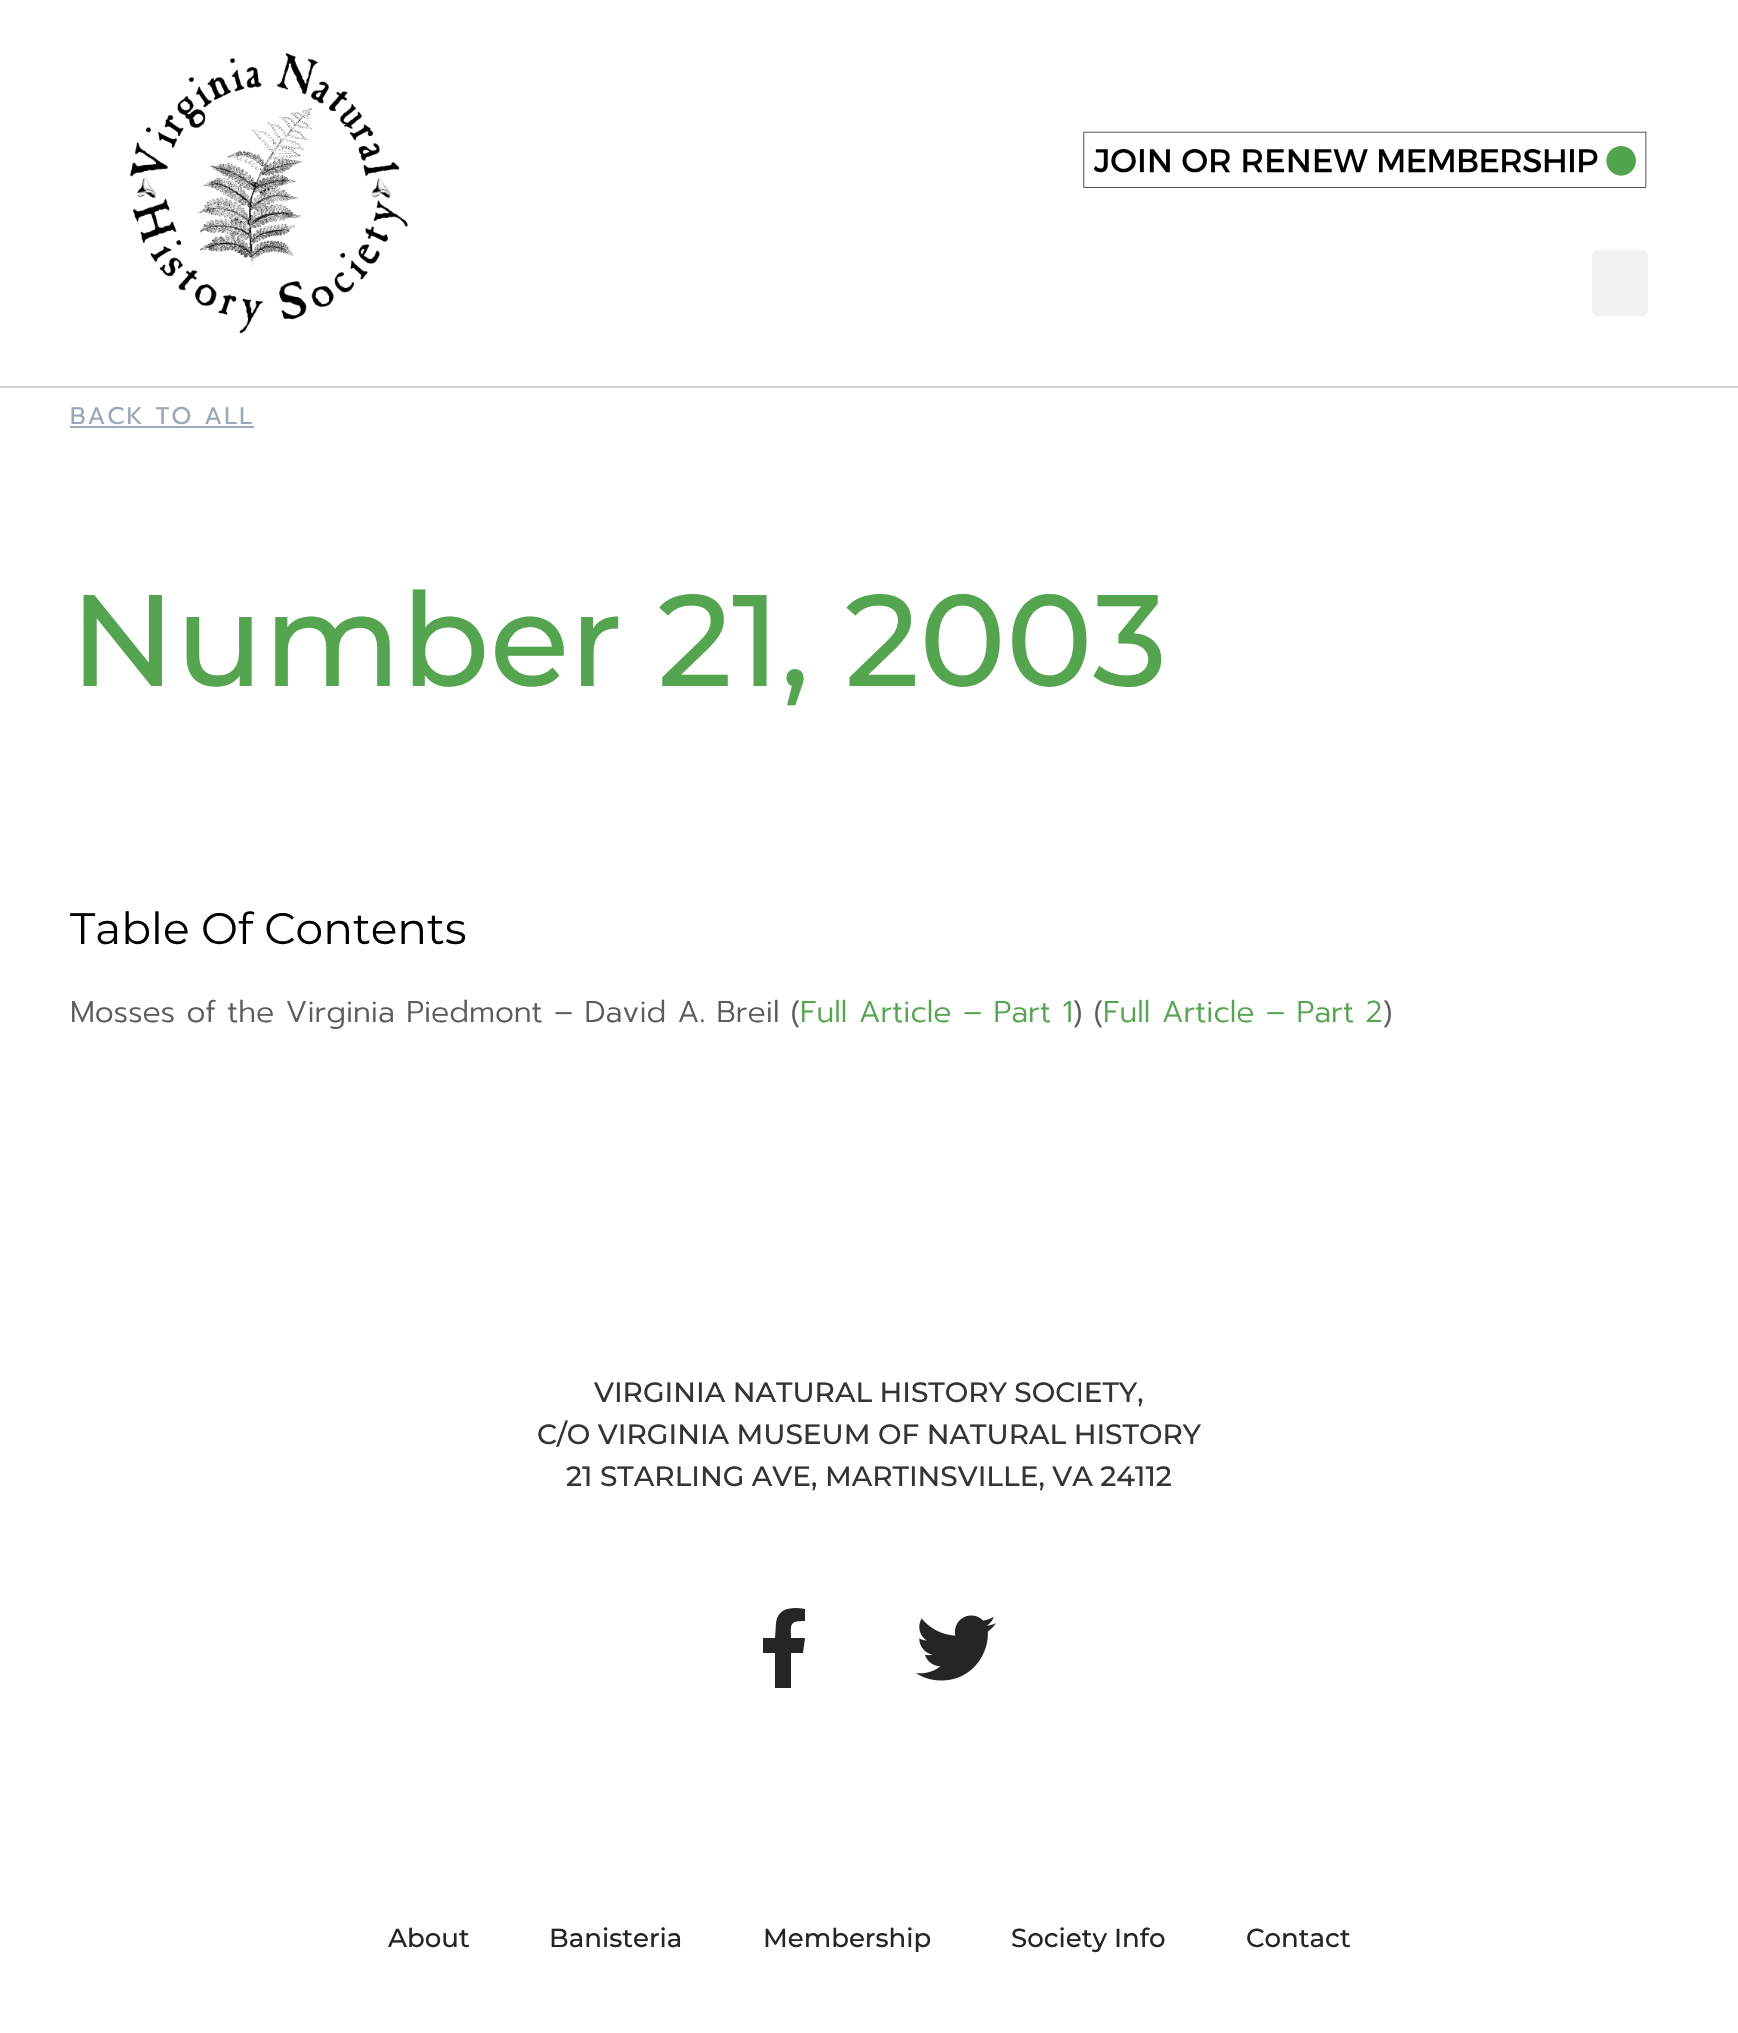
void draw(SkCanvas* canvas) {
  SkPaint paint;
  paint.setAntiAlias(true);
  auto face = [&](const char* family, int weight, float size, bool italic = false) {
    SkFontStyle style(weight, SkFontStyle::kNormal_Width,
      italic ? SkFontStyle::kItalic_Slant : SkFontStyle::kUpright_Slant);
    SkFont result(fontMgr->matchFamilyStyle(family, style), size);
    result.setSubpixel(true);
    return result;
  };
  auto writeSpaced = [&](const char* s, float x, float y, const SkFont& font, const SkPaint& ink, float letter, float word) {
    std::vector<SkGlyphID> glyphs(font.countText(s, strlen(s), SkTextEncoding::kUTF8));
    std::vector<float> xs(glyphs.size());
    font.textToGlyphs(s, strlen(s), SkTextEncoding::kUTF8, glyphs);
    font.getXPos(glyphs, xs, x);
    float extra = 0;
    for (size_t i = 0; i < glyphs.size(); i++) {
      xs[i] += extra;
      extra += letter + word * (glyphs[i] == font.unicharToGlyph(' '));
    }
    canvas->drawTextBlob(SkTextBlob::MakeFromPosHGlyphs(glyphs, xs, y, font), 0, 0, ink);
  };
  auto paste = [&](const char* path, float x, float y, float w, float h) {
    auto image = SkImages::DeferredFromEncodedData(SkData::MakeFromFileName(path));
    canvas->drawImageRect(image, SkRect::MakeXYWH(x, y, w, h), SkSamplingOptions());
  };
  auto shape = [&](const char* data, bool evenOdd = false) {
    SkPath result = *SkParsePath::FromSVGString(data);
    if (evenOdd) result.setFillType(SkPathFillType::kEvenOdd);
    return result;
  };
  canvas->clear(0xffffffff);
  paint.setColor(0xffd3d3d3);
  canvas->drawRect(SkRect::MakeXYWH(0, 386, 1738, 2), paint);
  paste("img/1.png", 130, 53, 278, 281);
  paste("img/2.png", 1083, 131, 564, 57);
  paint.setColor(0xfff2f2f2);
  canvas->drawRoundRect(SkRect::MakeXYWH(1592, 250, 56, 66), 6, 6, paint);
  paint.setColor(0xff9aa8ba);
  canvas->drawRect(SkRect::MakeXYWH(70, 426, 184, 2), paint);
  paint.setColor(0xff252525);
  canvas->drawPath(shape("M803 1653H791V1688H775V1653H763V1638H775L776 1623C778 1607 793 1607 805 1609V1621C789 1621 791 1624 791 1638H805Z"), paint);
  paste("img/3.png", 916, 1615, 80, 66);
  auto f0 = face("Prompt", 400, 24);
  paint.setColor(0xff9aa8ba);
  writeSpaced("BACK TO ALL", 70, 424, f0, paint, 2, 0);
  auto f1 = face("Montserrat", 500, 130);
  paint.setColor(0xff54a450);
  canvas->drawString("Number 21, 2003", 70, 686, f1, paint);
  auto f2 = face("Montserrat", 400, 44);
  paint.setColor(0xff000000);
  canvas->drawString("Table Of Contents", 70, 944, f2, paint);
  auto f3 = face("Prompt", 300, 30);
  paint.setColor(0xff5f5b5b);
  canvas->drawString("Mosses of the Virginia Piedmont – David A. Breil (", 70, 1022, f3, paint);
  paint.setColor(0xff54a450);
  canvas->drawString("Full Article – Part 1", 800, 1022, f3, paint);
  paint.setColor(0xff5f5b5b);
  canvas->drawString(") (", 1073, 1022, f3, paint);
  paint.setColor(0xff54a450);
  canvas->drawString("Full Article – Part 2", 1103, 1022, f3, paint);
  paint.setColor(0xff5f5b5b);
  canvas->drawString(")", 1383, 1022, f3, paint);
  auto f4 = face("Montserrat", 500, 28);
  paint.setColor(0xff343434);
  {
    const struct { const char* s; float x, y; } items[] = {
      {"VIRGINIA NATURAL HISTORY SOCIETY,", 594, 1402},
      {"C/O VIRGINIA MUSEUM OF NATURAL HISTORY", 537, 1444},
      {"21 STARLING AVE, MARTINSVILLE, VA 24112", 566, 1486},
    };
    for (auto [s, x, y] : items) {
      canvas->drawString(s, x, y, f4, paint);
    }
  }
  auto f5 = face("Montserrat", 500, 26);
  paint.setColor(0xff252525);
  {
    const struct { const char* s; float x, y; } items[] = {
      {"About", 388, 1947},
      {"Banisteria", 549, 1947},
      {"Membership", 763, 1947},
      {"Society Info", 1011, 1947},
      {"Contact", 1246, 1947},
    };
    for (auto [s, x, y] : items) {
      canvas->drawString(s, x, y, f5, paint);
    }
  }
}
